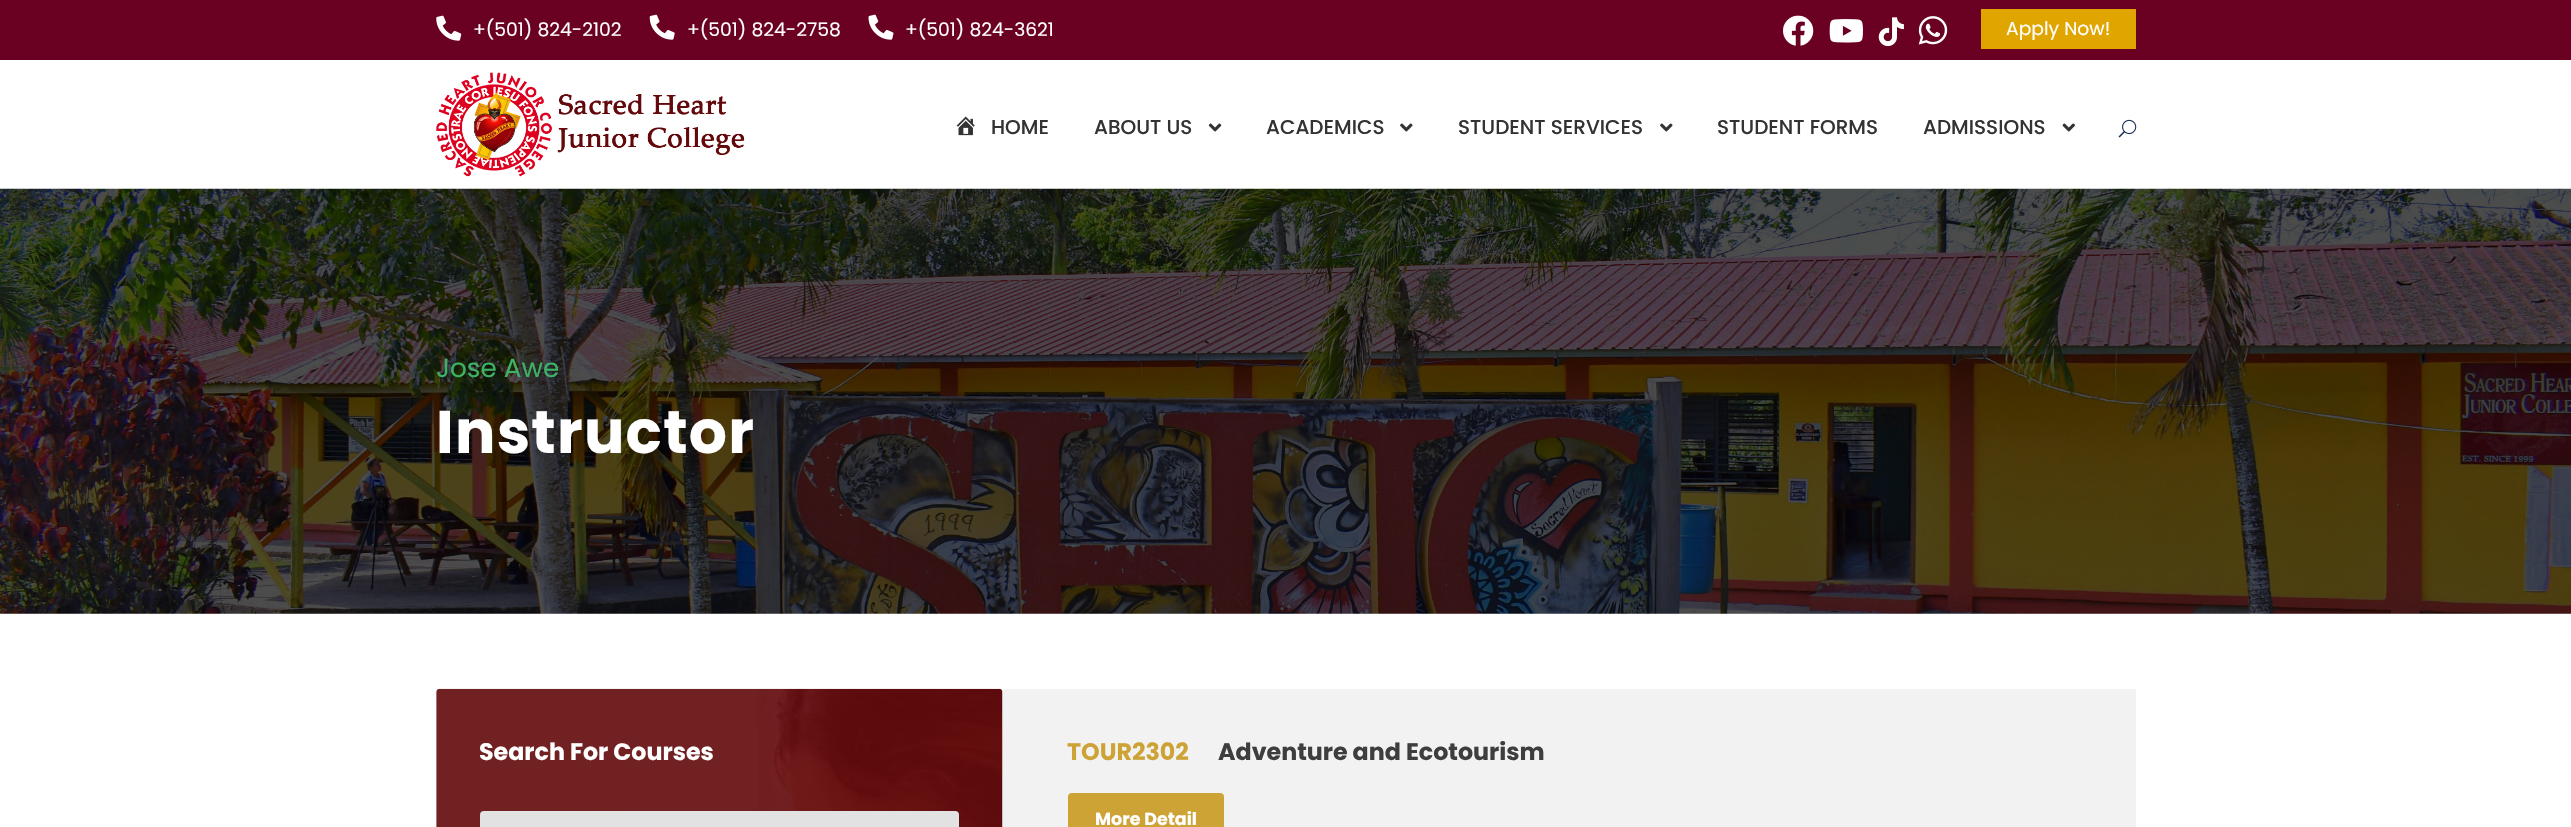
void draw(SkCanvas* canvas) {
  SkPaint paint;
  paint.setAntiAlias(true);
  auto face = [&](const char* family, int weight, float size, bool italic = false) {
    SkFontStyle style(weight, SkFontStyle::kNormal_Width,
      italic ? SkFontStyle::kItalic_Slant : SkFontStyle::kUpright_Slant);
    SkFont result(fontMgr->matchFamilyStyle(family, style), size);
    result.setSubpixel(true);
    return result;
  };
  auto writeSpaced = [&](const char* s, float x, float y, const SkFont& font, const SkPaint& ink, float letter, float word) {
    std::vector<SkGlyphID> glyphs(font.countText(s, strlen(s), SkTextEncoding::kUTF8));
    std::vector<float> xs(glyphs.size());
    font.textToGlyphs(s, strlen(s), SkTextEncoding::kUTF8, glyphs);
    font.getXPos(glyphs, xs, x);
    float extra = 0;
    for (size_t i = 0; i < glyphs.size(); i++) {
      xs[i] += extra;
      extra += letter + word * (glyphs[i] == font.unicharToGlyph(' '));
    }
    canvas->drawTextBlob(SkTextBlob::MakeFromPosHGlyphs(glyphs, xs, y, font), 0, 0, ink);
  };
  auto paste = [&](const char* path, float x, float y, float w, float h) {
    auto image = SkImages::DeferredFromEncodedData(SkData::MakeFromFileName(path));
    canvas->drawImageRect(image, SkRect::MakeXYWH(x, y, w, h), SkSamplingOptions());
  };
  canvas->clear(0xffffffff);
  paint.setColor(0xff6a0122);
  canvas->drawRect(SkRect::MakeXYWH(0, 0, 2571, 60), paint);
  paste("img/1.png", 436, 15, 26, 26);
  paste("img/2.png", 649, 14, 26, 26);
  paste("img/3.png", 868, 14, 26, 26);
  paste("img/4.png", 1783, 15, 31, 31);
  paste("img/5.png", 1829, 19, 34, 24);
  paste("img/6.png", 1878, 17, 26, 30);
  paste("img/7.png", 1918, 16, 30, 29);
  paint.setColor(0xffe1a500);
  canvas->drawRect(SkRect::MakeXYWH(1981, 9, 155, 40), paint);
  paint.setColor(0x1a000000);
  paint.setMaskFilter(SkMaskFilter::MakeBlur(kNormal_SkBlurStyle, 2.5f));
  canvas->drawRect(SkRect::MakeXYWH(0, 61, 2571, 129), paint);
  paint.setMaskFilter(nullptr);
  paint.setColor(0xffffffff);
  canvas->drawRect(SkRect::MakeXYWH(0, 60, 2571, 129), paint);
  paste("img/8.png", 436, 72, 309, 105);
  paste("img/9.png", 956, 116, 19, 20);
  paste("img/10.png", 1208, 123, 14, 9);
  paste("img/11.png", 1400, 123, 13, 9);
  paste("img/11.png", 1660, 123, 13, 9);
  paste("img/12.png", 2062, 123, 13, 9);
  paste("img/13.png", 2118, 119, 19, 19);
  paste("img/14.png", 0, 188, 2571, 426);
  paint.setColor(0xfff3f3f3);
  canvas->drawRoundRect(SkRect::MakeXYWH(436, 689, 567, 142), 4, 4, paint);
  paste("img/15.png", 436, 688, 567, 139);
  paint.setColor(0xffe2e2e2);
  canvas->drawRoundRect(SkRect::MakeXYWH(480, 811, 479, 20), 4, 4, paint);
  paint.setColor(0xfff2f2f2);
  canvas->drawRect(SkRect::MakeXYWH(1003, 689, 1133, 138), paint);
  paint.setColor(0xffcea335);
  canvas->drawRoundRect(SkRect::MakeXYWH(1068, 793, 156, 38), 4, 4, paint);
  auto f0 = face("Poppins", 400, 18.75f);
  paint.setColor(0xffffffff);
  {
    const struct { const char* s; float x, y; } items[] = {
      {"+(501) 824-2102", 473, 36},
      {"+(501) 824-2758", 687, 36},
      {"+(501) 824-3621", 905, 36},
      {"Apply Now!", 2006, 35},
    };
    for (auto [s, x, y] : items) {
      canvas->drawString(s, x, y, f0, paint);
    }
  }
  auto f1 = face("Poppins", 500, 20);
  paint.setColor(0xff333333);
  {
    const struct { const char* s; float x, y; } items[] = {
      {"HOME", 991, 134},
      {"ABOUT US", 1094, 134},
      {"ACADEMICS", 1266, 134},
      {"STUDENT SERVICES", 1458, 134},
      {"STUDENT FORMS", 1717, 134},
      {"ADMISSIONS", 1923, 134},
    };
    for (auto [s, x, y] : items) {
      canvas->drawString(s, x, y, f1, paint);
    }
  }
  auto f2 = face("Poppins", 400, 26.25f);
  paint.setColor(0xff3db166);
  canvas->drawString("Jose Awe", 436, 377, f2, paint);
  auto f3 = face("Poppins", 700, 60);
  paint.setColor(0xffffffff);
  writeSpaced("Instructor", 436, 453, f3, paint, 1.25f, 0);
  auto f4 = face("Poppins", 700, 23.75f);
  canvas->drawString("Search For Courses", 479, 760, f4, paint);
  paint.setColor(0xffcea335);
  canvas->drawString("TOUR2302", 1067, 760, f4, paint);
  paint.setColor(0xff3e3e3e);
  canvas->drawString("Adventure and Ecotourism", 1218, 760, f4, paint);
  auto f5 = face("Poppins", 700, 17.5f);
  paint.setColor(0xffffffff);
  canvas->drawString("More Detail", 1095, 825, f5, paint);
}
